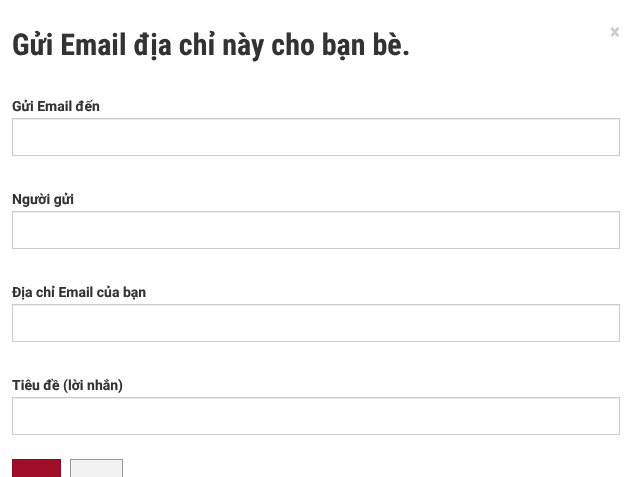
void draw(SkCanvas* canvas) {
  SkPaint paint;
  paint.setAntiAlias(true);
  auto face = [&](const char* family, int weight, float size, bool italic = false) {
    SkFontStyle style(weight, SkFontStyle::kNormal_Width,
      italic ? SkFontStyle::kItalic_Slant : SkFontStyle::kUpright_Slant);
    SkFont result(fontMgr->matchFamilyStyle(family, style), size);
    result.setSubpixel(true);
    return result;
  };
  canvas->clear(0xffffffff);
  paint.setColor(0xffececec);
  canvas->drawRect(SkRect::MakeXYWH(13, 119, 606, 1), paint);
  paint.setStroke(true);
  paint.setStrokeWidth(1);
  paint.setColor(0xffcccccc);
  canvas->drawRect(SkRect::MakeXYWH(12.5f, 118.5f, 607, 37), paint);
  paint.setStroke(false);
  paint.setColor(0xffececec);
  canvas->drawRect(SkRect::MakeXYWH(13, 212, 606, 1), paint);
  paint.setStroke(true);
  paint.setColor(0xffcccccc);
  canvas->drawRect(SkRect::MakeXYWH(12.5f, 211.5f, 607, 37), paint);
  paint.setStroke(false);
  paint.setColor(0xffececec);
  canvas->drawRect(SkRect::MakeXYWH(13, 305, 606, 1), paint);
  paint.setStroke(true);
  paint.setColor(0xffcccccc);
  canvas->drawRect(SkRect::MakeXYWH(12.5f, 304.5f, 607, 37), paint);
  paint.setStroke(false);
  paint.setColor(0xffececec);
  canvas->drawRect(SkRect::MakeXYWH(13, 398, 606, 1), paint);
  paint.setStroke(true);
  paint.setColor(0xffcccccc);
  canvas->drawRect(SkRect::MakeXYWH(12.5f, 397.5f, 607, 37), paint);
  paint.setStroke(false);
  paint.setColor(0xff9f0f2a);
  canvas->drawRect(SkRect::MakeXYWH(12.5f, 459.5f, 48, 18), paint);
  paint.setStroke(true);
  paint.setColor(0xff880d24);
  canvas->drawRect(SkRect::MakeXYWH(12.5f, 459.5f, 48, 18), paint);
  paint.setStroke(false);
  paint.setColor(0xfff2f2f2);
  canvas->drawRect(SkRect::MakeXYWH(70.5f, 459.5f, 52, 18), paint);
  paint.setStroke(true);
  paint.setColor(0xff999999);
  canvas->drawRect(SkRect::MakeXYWH(70.5f, 459.5f, 52, 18), paint);
  auto f0 = face("Roboto Condensed", 700, 30);
  paint.setStroke(false);
  paint.setColor(0xff333333);
  canvas->drawString("Gửi Email địa chỉ này cho bạn bè.", 12, 55, f0, paint);
  auto f1 = face("Roboto Condensed", 700, 21);
  paint.setColor(0xffcccccc);
  canvas->drawString("×", 610, 39, f1, paint);
  auto f2 = face("Roboto", 700, 14);
  paint.setColor(0xff333333);
  {
    const struct { const char* s; float x, y; } items[] = {
      {"Gửi Email đến", 12, 111},
      {"Người gửi", 12, 204},
      {"Địa chỉ Email của bạn", 12, 297},
      {"Tiêu đề (lời nhắn)", 12, 390},
    };
    for (auto [s, x, y] : items) {
      canvas->drawString(s, x, y, f2, paint);
    }
  }
}
